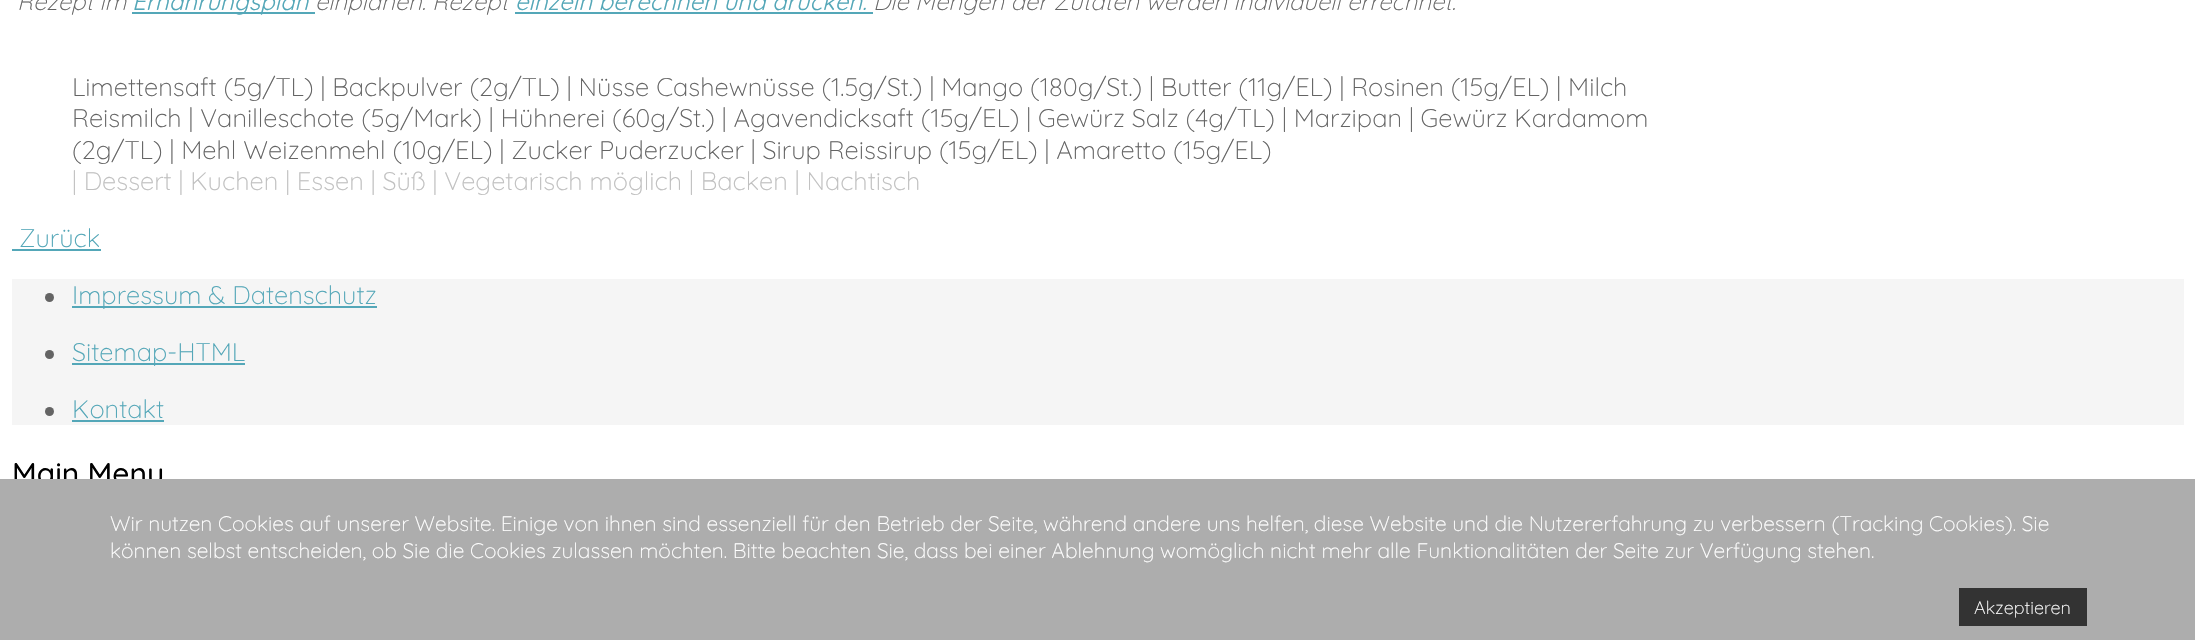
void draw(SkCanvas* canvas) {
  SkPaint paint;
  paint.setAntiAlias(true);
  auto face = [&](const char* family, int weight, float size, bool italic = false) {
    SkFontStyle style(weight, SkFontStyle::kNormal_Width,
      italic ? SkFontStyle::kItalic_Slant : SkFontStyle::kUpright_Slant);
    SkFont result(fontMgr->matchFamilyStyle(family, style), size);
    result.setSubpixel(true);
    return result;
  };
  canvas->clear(0xffffffff);
  {
    const struct { float x, y, w, h; SkColor color; } items[] = {
      {132, 12, 183, 2, 0xff54a7b8},
      {515, 12, 358, 2, 0xff54a7b8},
      {12, 249, 89, 2, 0xff54a7b8},
      {12, 279, 2172, 146, 0xfff5f5f5},
    };
    for (auto [x, y, w, h, color] : items) {
      paint.setColor(color);
      canvas->drawRect(SkRect::MakeXYWH(x, y, w, h), paint);
    }
  }
  paint.setColor(0xff646464);
  canvas->drawCircle(49.5f, 297.5f, 4.5f, paint);
  paint.setColor(0xff54a7b8);
  canvas->drawRect(SkRect::MakeXYWH(72, 306, 305, 2), paint);
  paint.setColor(0xff646464);
  canvas->drawCircle(49.5f, 354.5f, 4.5f, paint);
  paint.setColor(0xff54a7b8);
  canvas->drawRect(SkRect::MakeXYWH(72, 363, 173, 2), paint);
  paint.setColor(0xff646464);
  canvas->drawCircle(49.5f, 411.5f, 4.5f, paint);
  paint.setColor(0xff54a7b8);
  canvas->drawRect(SkRect::MakeXYWH(72, 420, 92, 2), paint);
  auto f0 = face("Quicksand", 300, 24, true);
  paint.setColor(0xff646464);
  canvas->drawString("Rezept im", 17, 10, f0, paint);
  auto f1 = face("Quicksand", 400, 24, true);
  paint.setColor(0xff54a7b8);
  canvas->drawString("Ernährungsplan", 132, 10, f1, paint);
  paint.setColor(0xff646464);
  canvas->drawString("einplanen. Rezept", 315, 10, f0, paint);
  paint.setColor(0xff54a7b8);
  canvas->drawString("einzeln berechnen und drucken.", 515, 10, f1, paint);
  paint.setColor(0xff646464);
  canvas->drawString("Die Mengen der Zutaten werden individuell errechnet.", 873, 10, f0, paint);
  auto f2 = face("Quicksand", 300, 25.5f);
  {
    const struct { const char* s; float x, y; } items[] = {
      {"Limettensaft (5g/TL) | Backpulver (2g/TL) | Nüsse Cashewnüsse (1.5g/St.) | Mango (180g/St.) | Butter (11g/EL) | Rosinen (15g/EL) | Milch", 72, 96},
      {"Reismilch | Vanilleschote (5g/Mark) | Hühnerei (60g/St.) | Agavendicksaft (15g/EL) | Gewürz Salz (4g/TL) | Marzipan | Gewürz Kardamom", 72, 127},
      {"(2g/TL) | Mehl Weizenmehl (10g/EL) | Zucker Puderzucker | Sirup Reissirup (15g/EL) | Amaretto (15g/EL)", 72, 159},
    };
    for (auto [s, x, y] : items) {
      canvas->drawString(s, x, y, f2, paint);
    }
  }
  paint.setColor(0xffc0c0c0);
  canvas->drawString("| Dessert | Kuchen | Essen | Süß | Vegetarisch möglich | Backen | Nachtisch", 72, 190, f2, paint);
  paint.setColor(0xff54a7b8);
  {
    const struct { const char* s; float x, y; } items[] = {
      {"Zurück", 19, 247},
      {"Impressum & Datenschutz", 72, 304},
      {"Sitemap-HTML", 72, 361},
      {"Kontakt", 72, 418},
    };
    for (auto [s, x, y] : items) {
      canvas->drawString(s, x, y, f2, paint);
    }
  }
  auto f3 = face("Quicksand", 500, 30);
  paint.setColor(0xff000000);
  canvas->drawString("Main Menu", 12, 484, f3, paint);
  paint.setColor(0xffadadad);
  canvas->drawRect(SkRect::MakeXYWH(0, 479, 2195, 161), paint);
  auto f4 = face("Quicksand", 300, 21);
  paint.setColor(0xffffffff);
  canvas->drawString("Wir nutzen Cookies auf unserer Website. Einige von ihnen sind essenziell für den Betrieb der Seite, während andere uns helfen, diese Website und die Nutzererfahrung zu verbessern (Tracking Cookies). Sie", 110, 531, f4, paint);
  canvas->drawString("können selbst entscheiden, ob Sie die Cookies zulassen möchten. Bitte beachten Sie, dass bei einer Ablehnung womöglich nicht mehr alle Funktionalitäten der Seite zur Verfügung stehen.", 110, 558, f4, paint);
  paint.setColor(0xff333333);
  canvas->drawRect(SkRect::MakeXYWH(1959, 588, 128, 38), paint);
  auto f5 = face("Quicksand", 300, 18);
  paint.setColor(0xffffffff);
  canvas->drawString("Akzeptieren", 1974, 614, f5, paint);
}
